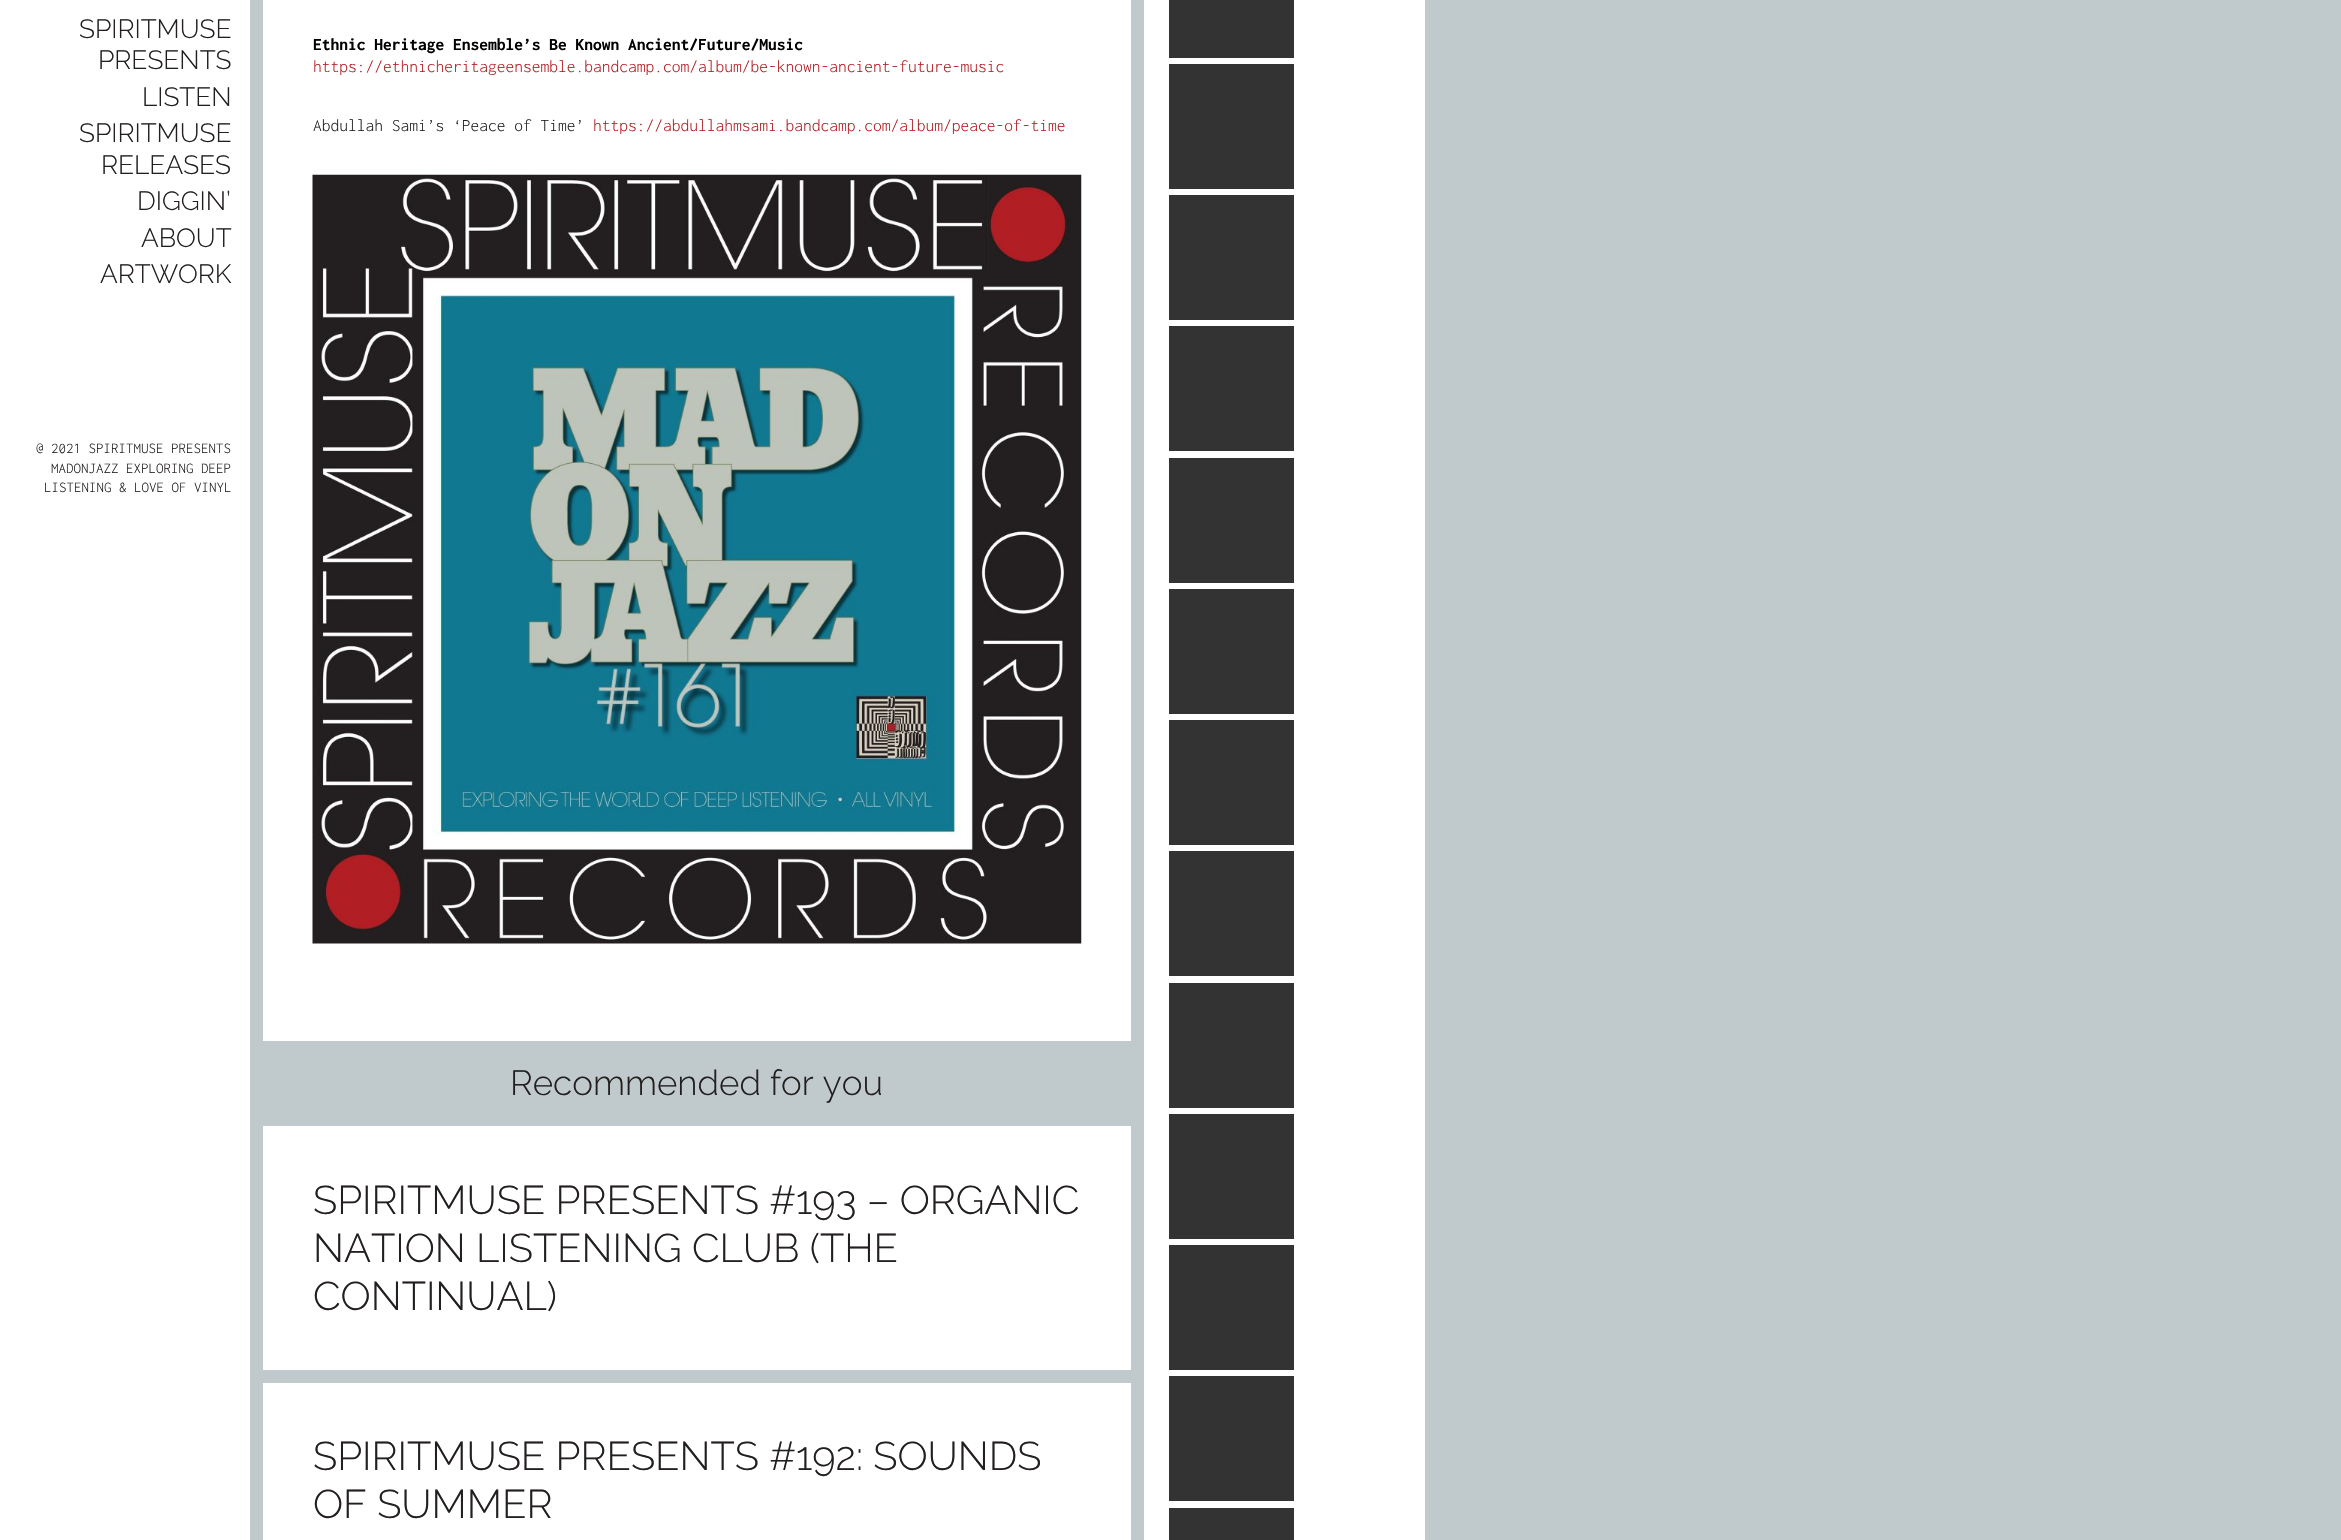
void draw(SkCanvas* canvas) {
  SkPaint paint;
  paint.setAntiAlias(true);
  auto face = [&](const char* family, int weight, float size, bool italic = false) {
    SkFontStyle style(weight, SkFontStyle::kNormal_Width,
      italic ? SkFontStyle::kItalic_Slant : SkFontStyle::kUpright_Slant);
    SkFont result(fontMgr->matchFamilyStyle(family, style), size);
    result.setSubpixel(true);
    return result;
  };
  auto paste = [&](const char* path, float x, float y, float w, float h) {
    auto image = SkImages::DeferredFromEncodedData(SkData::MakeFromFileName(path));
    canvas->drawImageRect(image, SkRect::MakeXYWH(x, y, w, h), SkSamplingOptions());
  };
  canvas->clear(0xffc0c9cc);
  {
    const struct { float x, y, w, h; SkColor color; } items[] = {
      {0, 0, 250, 1540, 0xffffffff},
      {1144, 0, 281, 1540, 0xffffffff},
      {1169, 0, 125, 58, 0xff333333},
      {1169, 64, 125, 125, 0xff333333},
      {1169, 195, 125, 125, 0xff333333},
      {1169, 326, 125, 125, 0xff333333},
      {1169, 458, 125, 125, 0xff333333},
      {1169, 589, 125, 125, 0xff333333},
      {1169, 720, 125, 125, 0xff333333},
      {1169, 851, 125, 125, 0xff333333},
      {1169, 983, 125, 125, 0xff333333},
      {1169, 1114, 125, 125, 0xff333333},
      {1169, 1245, 125, 125, 0xff333333},
      {1169, 1376, 125, 125, 0xff333333},
      {1169, 1508, 125, 32, 0xff333333},
      {263, 0, 868, 1041, 0xffffffff},
    };
    for (auto [x, y, w, h, color] : items) {
      paint.setColor(color);
      canvas->drawRect(SkRect::MakeXYWH(x, y, w, h), paint);
    }
  }
  paste("img/1.png", 312, 174, 770, 770);
  canvas->drawRect(SkRect::MakeXYWH(263, 1126, 868, 244), paint);
  canvas->drawRect(SkRect::MakeXYWH(263, 1383, 868, 157), paint);
  auto f0 = face("Raleway", 300, 26.25f);
  paint.setColor(0xff231f20);
  {
    const struct { const char* s; float x, y; } items[] = {
      {"SPIRITMUSE", 79, 38},
      {"PRESENTS", 98, 69},
      {"LISTEN", 142, 106},
      {"SPIRITMUSE", 79, 142},
      {"RELEASES", 101, 174},
      {"DIGGIN’", 137, 210},
      {"ABOUT", 141, 247},
      {"ARTWORK", 100, 283},
    };
    for (auto [s, x, y] : items) {
      canvas->drawString(s, x, y, f0, paint);
    }
  }
  auto f1 = face("Inconsolata", 300, 15);
  {
    const struct { const char* s; float x, y; } items[] = {
      {"@ 2021 SPIRITMUSE PRESENTS", 36, 453},
      {"MADONJAZZ EXPLORING DEEP", 51, 473},
      {"LISTENING & LOVE OF VINYL", 44, 492},
    };
    for (auto [s, x, y] : items) {
      canvas->drawString(s, x, y, f1, paint);
    }
  }
  auto f2 = face("Inconsolata", 700, 17.5f);
  paint.setColor(0xff000000);
  canvas->drawString("Ethnic Heritage Ensemble’s Be Known Ancient/Future/Music", 313, 50, f2, paint);
  auto f3 = face("Inconsolata", 300, 17.5f);
  paint.setColor(0xffb11e24);
  canvas->drawString("https://ethnicheritageensemble.bandcamp.com/album/be-known-ancient-future-music", 313, 72, f3, paint);
  paint.setColor(0xff231f20);
  canvas->drawString("Abdullah Sami’s ‘Peace of Time’", 313, 131, f3, paint);
  paint.setColor(0xffb11e24);
  canvas->drawString("https://abdullahmsami.bandcamp.com/album/peace-of-time", 593, 131, f3, paint);
  auto f4 = face("Raleway", 300, 35);
  paint.setColor(0xff231f20);
  canvas->drawString("Recommended for you", 510, 1095, f4, paint);
  auto f5 = face("Raleway", 300, 40);
  {
    const struct { const char* s; float x, y; } items[] = {
      {"SPIRITMUSE PRESENTS #193 – ORGANIC", 313, 1214},
      {"NATION LISTENING CLUB (THE", 313, 1262},
      {"CONTINUAL)", 313, 1310},
      {"SPIRITMUSE PRESENTS #192: SOUNDS", 313, 1470},
      {"OF SUMMER", 313, 1518},
    };
    for (auto [s, x, y] : items) {
      canvas->drawString(s, x, y, f5, paint);
    }
  }
}
